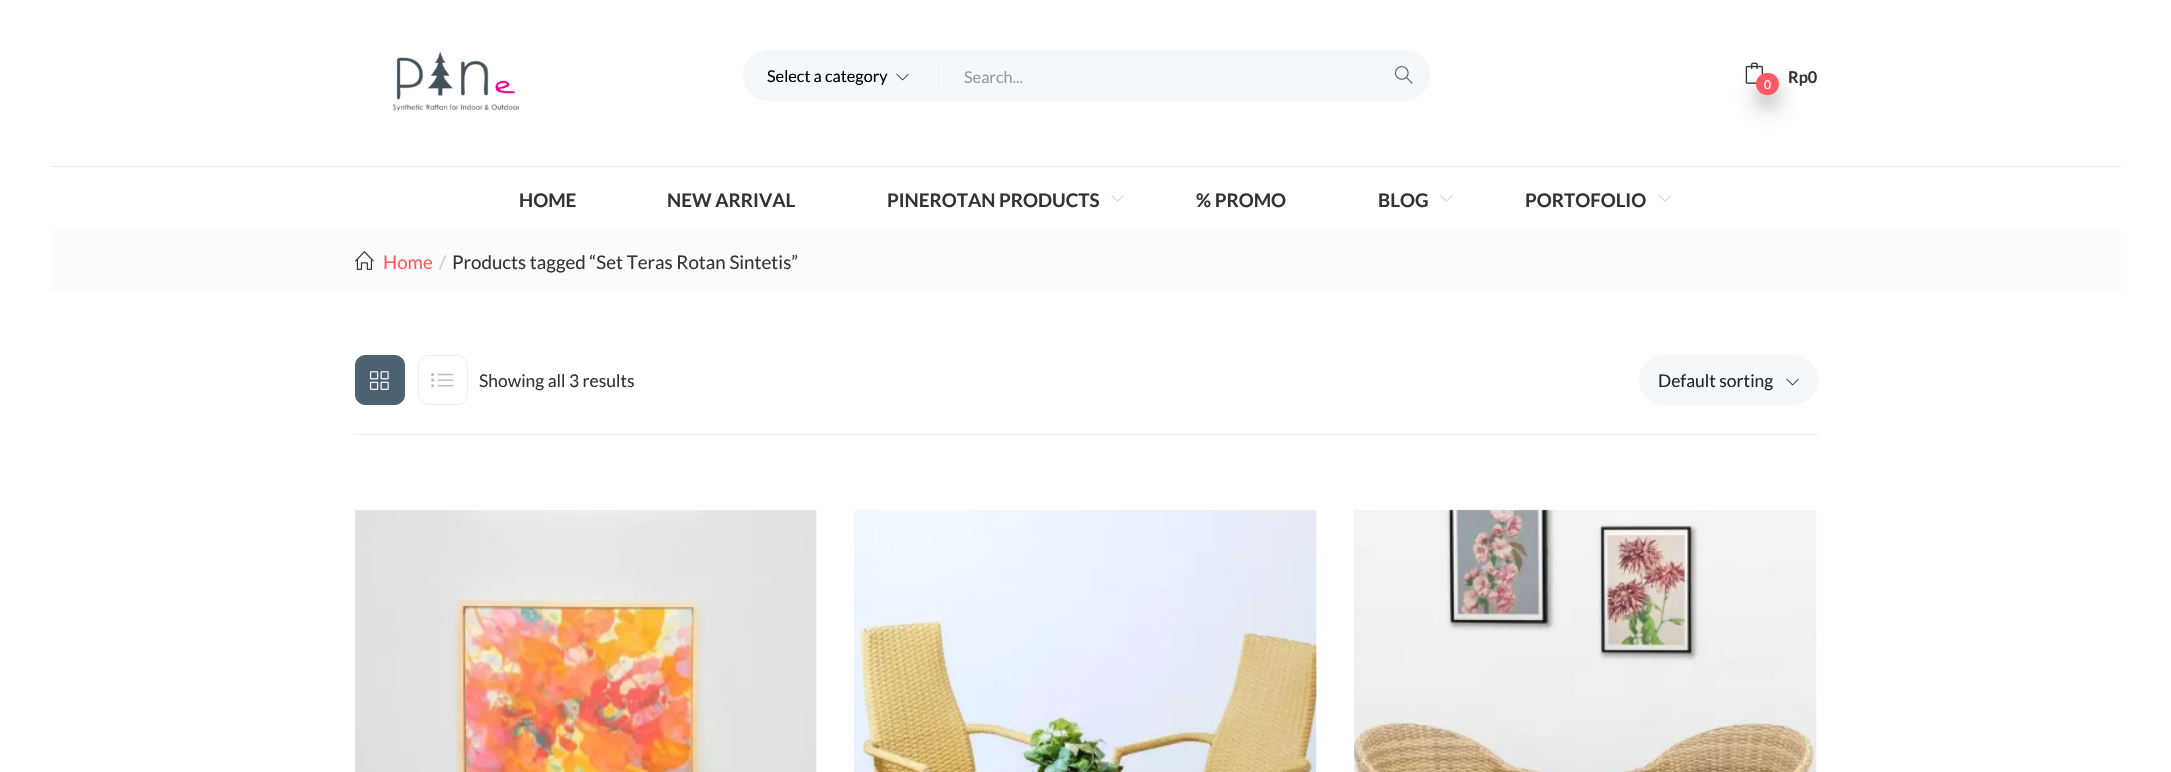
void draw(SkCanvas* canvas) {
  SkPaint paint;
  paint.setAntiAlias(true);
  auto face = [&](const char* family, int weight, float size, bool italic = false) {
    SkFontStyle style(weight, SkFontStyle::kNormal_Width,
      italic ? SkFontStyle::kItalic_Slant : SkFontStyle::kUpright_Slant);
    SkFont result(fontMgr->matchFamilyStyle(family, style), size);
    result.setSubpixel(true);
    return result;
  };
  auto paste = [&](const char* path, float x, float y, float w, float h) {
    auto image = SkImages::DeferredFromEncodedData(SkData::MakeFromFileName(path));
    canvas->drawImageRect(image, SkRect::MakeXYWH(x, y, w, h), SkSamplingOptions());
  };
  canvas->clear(0xffffffff);
  paste("img/1.png", 393, 51, 127, 61);
  paint.setColor(0xfff4f8fb);
  canvas->drawRoundRect(SkRect::MakeXYWH(743, 50, 687, 51), 25.5f, 25.5f, paint);
  paint.setColor(0xffeeeeee);
  canvas->drawRect(SkRect::MakeXYWH(938, 58, 1, 35), paint);
  paste("img/2.png", 896, 73, 13, 8);
  paste("img/3.png", 1395, 66, 18, 18);
  paste("img/4.png", 1745, 62, 18, 22);
  paint.setColor(0x4d000000);
  paint.setMaskFilter(SkMaskFilter::MakeBlur(kNormal_SkBlurStyle, 10));
  canvas->drawRoundRect(SkRect::MakeXYWH(1756, 85, 23, 23), 11.5f, 11.5f, paint);
  paint.setMaskFilter(nullptr);
  paint.setColor(0xffff5964);
  canvas->drawRoundRect(SkRect::MakeXYWH(1756, 73, 23, 22), 11, 11, paint);
  paint.setColor(0xffeeeeee);
  canvas->drawRect(SkRect::MakeXYWH(50, 166, 2071, 1), paint);
  paste("img/5.png", 1111, 195, 13, 7);
  paste("img/6.png", 1440, 195, 13, 7);
  paste("img/7.png", 1659, 195, 13, 7);
  paint.setColor(0xfffcfcfc);
  canvas->drawRect(SkRect::MakeXYWH(50, 230, 2071, 63), paint);
  paste("img/8.png", 355, 251, 19, 19);
  paint.setColor(0xffeeeeee);
  canvas->drawRect(SkRect::MakeXYWH(355, 434, 1463, 1), paint);
  paint.setColor(0xff4d6171);
  canvas->drawRoundRect(SkRect::MakeXYWH(355.5f, 355.5f, 49, 49), 9.5f, 9.5f, paint);
  paint.setStroke(true);
  paint.setStrokeWidth(1);
  canvas->drawRoundRect(SkRect::MakeXYWH(355.5f, 355.5f, 49, 49), 9.5f, 9.5f, paint);
  paste("img/9.png", 370, 371, 19, 19);
  paint.setColor(0xffeeeeee);
  canvas->drawRoundRect(SkRect::MakeXYWH(418.5f, 355.5f, 49, 49), 9.5f, 9.5f, paint);
  paste("img/10.png", 431, 373, 23, 15);
  paint.setStroke(false);
  paint.setColor(0xfff4f8fb);
  canvas->drawRoundRect(SkRect::MakeXYWH(1639, 355, 179, 50), 25, 25, paint);
  paste("img/11.png", 1786, 378, 13, 8);
  paste("img/12.png", 355, 510, 462, 262);
  paste("img/13.png", 854, 510, 463, 262);
  paste("img/14.png", 1354, 509, 463, 263);
  auto f0 = face("Lato", 400, 16.25f);
  paint.setColor(0xff000000);
  canvas->drawString("Select a category", 767, 82, f0, paint);
  paint.setColor(0xff999999);
  canvas->drawString("Search...", 964, 83, f0, paint);
  auto f1 = face("Lato", 400, 12);
  paint.setColor(0xffffffff);
  canvas->drawString("0", 1764, 89, f1, paint);
  auto f2 = face("Lato", 700, 16.25f);
  paint.setColor(0xff333333);
  canvas->drawString("Rp0", 1788, 83, f2, paint);
  auto f3 = face("Lato", 700, 18.75f);
  {
    const struct { const char* s; float x, y; } items[] = {
      {"HOME", 519, 207},
      {"NEW ARRIVAL", 667, 207},
      {"PINEROTAN PRODUCTS", 887, 207},
      {"% PROMO", 1196, 207},
      {"BLOG", 1378, 207},
      {"PORTOFOLIO", 1525, 207},
    };
    for (auto [s, x, y] : items) {
      canvas->drawString(s, x, y, f3, paint);
    }
  }
  auto f4 = face("Lato", 400, 18.75f);
  paint.setColor(0xffff5964);
  canvas->drawString("Home", 383, 269, f4, paint);
  paint.setColor(0xffcccccc);
  canvas->drawString("/", 439, 269, f4, paint);
  paint.setColor(0xff333333);
  canvas->drawString("Products tagged “Set Teras Rotan Sintetis”", 452, 269, f4, paint);
  auto f5 = face("Lato", 400, 17.5f);
  canvas->drawString("Showing all 3 results", 479, 387, f5, paint);
  paint.setColor(0xff232323);
  canvas->drawString("Default sorting", 1658, 387, f5, paint);
}
